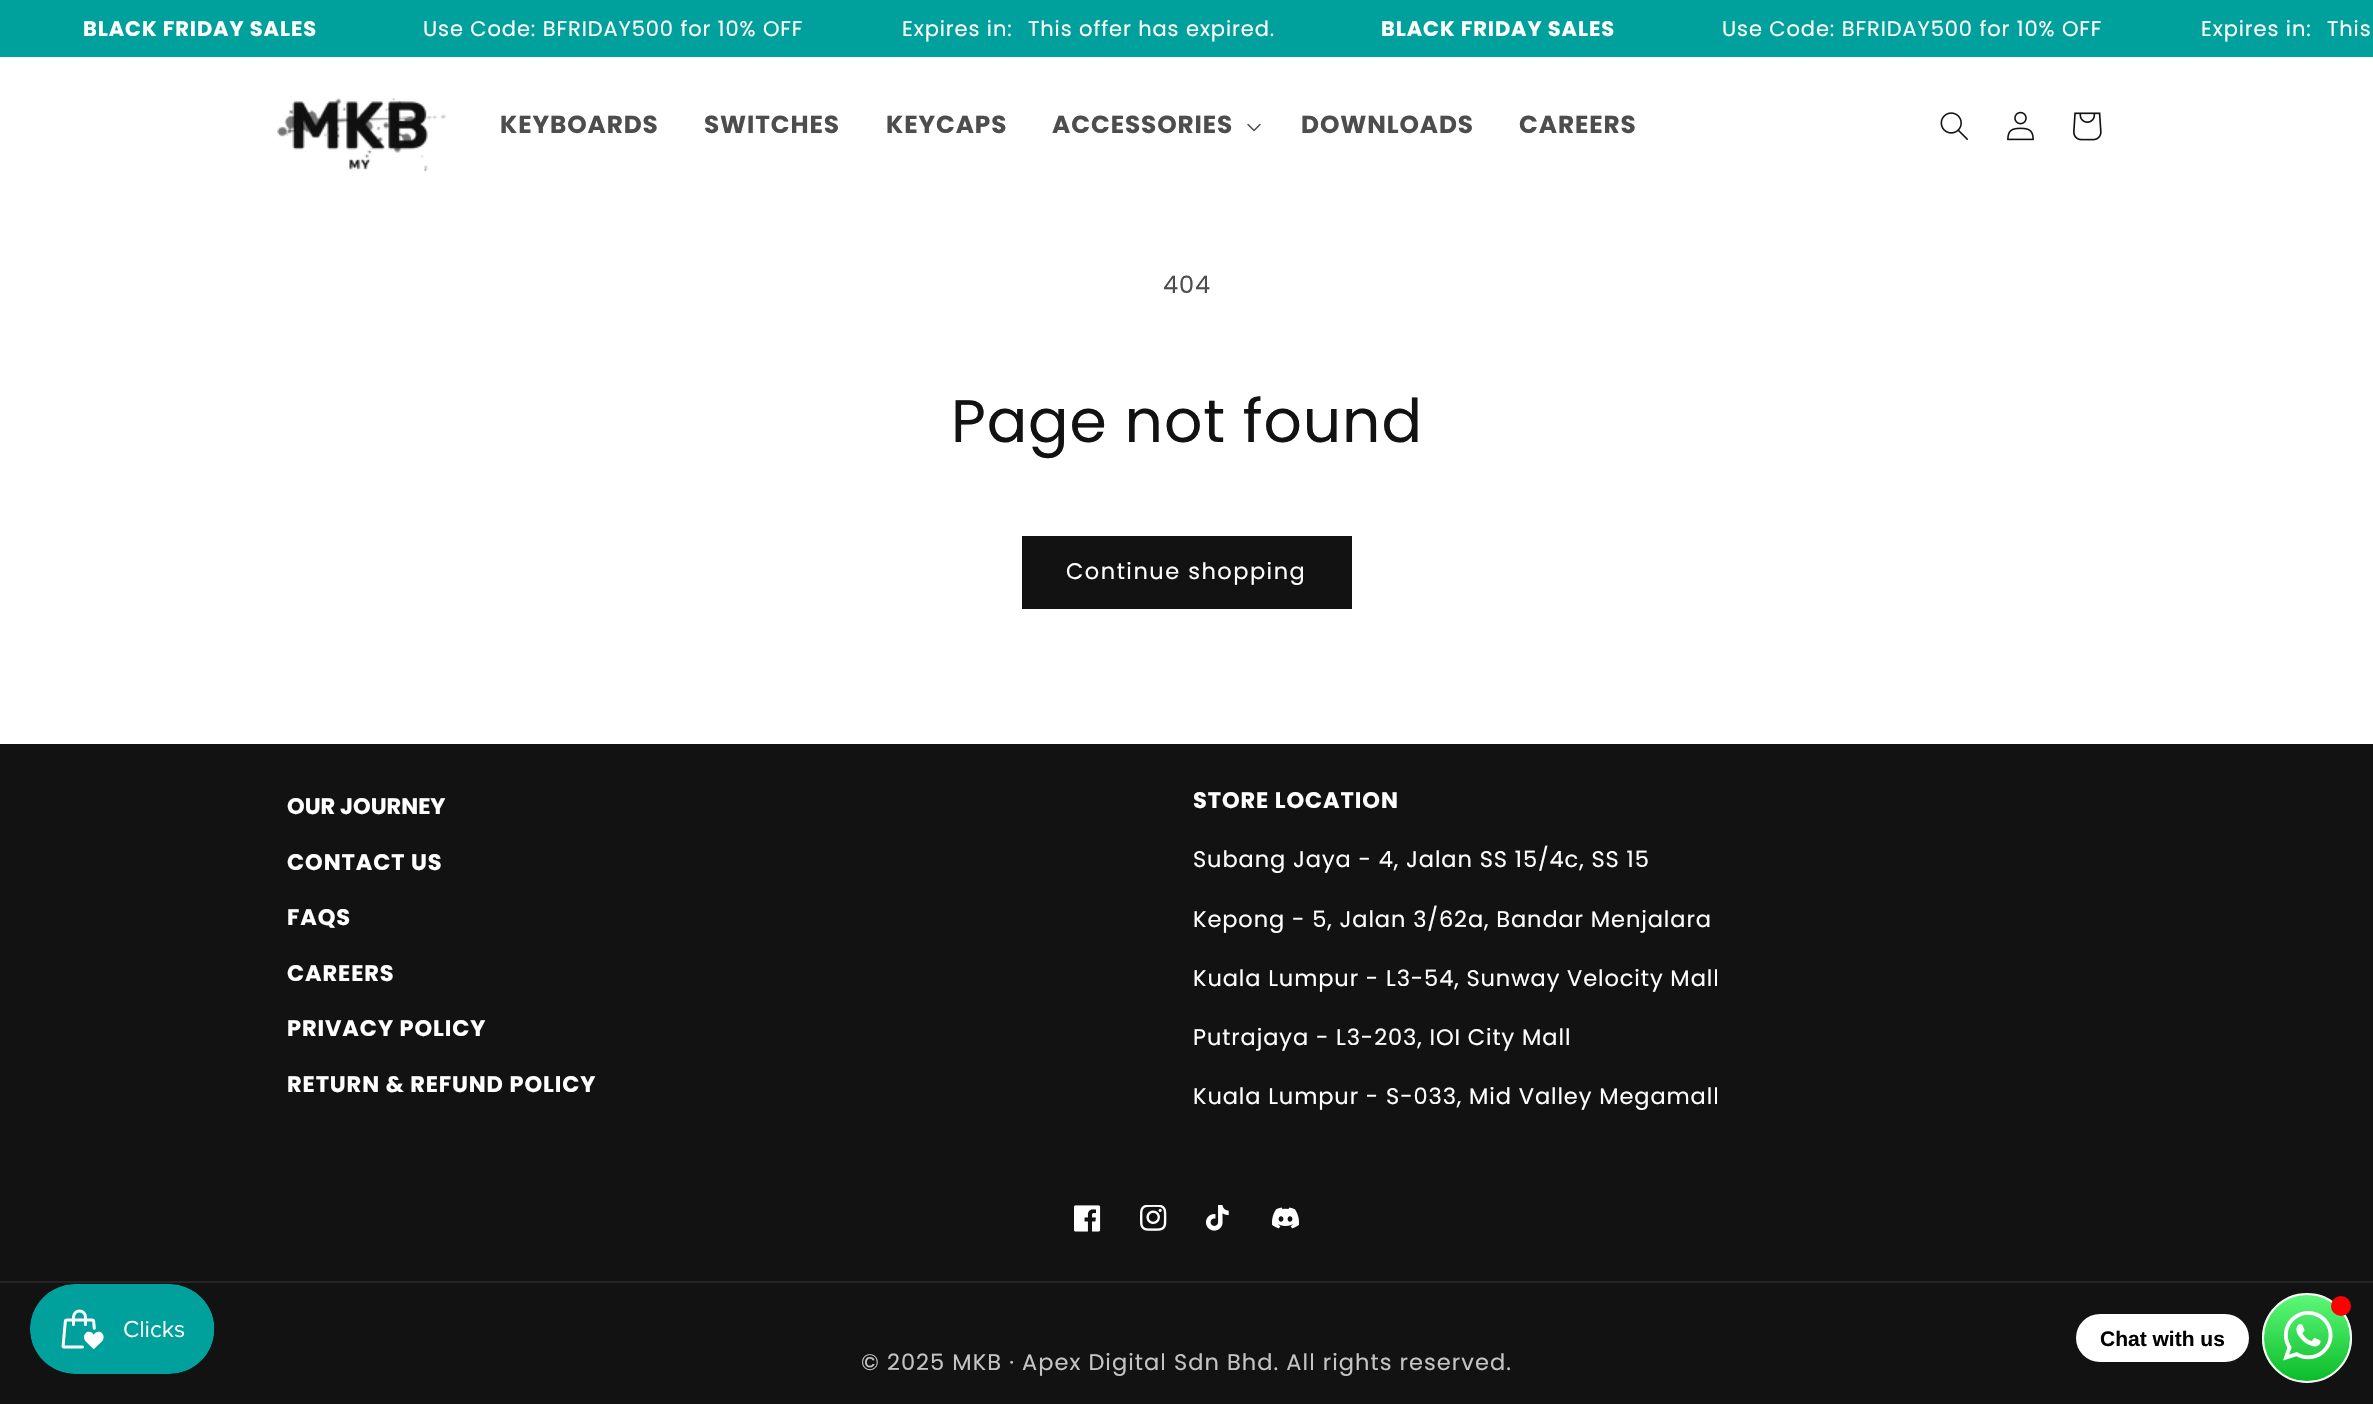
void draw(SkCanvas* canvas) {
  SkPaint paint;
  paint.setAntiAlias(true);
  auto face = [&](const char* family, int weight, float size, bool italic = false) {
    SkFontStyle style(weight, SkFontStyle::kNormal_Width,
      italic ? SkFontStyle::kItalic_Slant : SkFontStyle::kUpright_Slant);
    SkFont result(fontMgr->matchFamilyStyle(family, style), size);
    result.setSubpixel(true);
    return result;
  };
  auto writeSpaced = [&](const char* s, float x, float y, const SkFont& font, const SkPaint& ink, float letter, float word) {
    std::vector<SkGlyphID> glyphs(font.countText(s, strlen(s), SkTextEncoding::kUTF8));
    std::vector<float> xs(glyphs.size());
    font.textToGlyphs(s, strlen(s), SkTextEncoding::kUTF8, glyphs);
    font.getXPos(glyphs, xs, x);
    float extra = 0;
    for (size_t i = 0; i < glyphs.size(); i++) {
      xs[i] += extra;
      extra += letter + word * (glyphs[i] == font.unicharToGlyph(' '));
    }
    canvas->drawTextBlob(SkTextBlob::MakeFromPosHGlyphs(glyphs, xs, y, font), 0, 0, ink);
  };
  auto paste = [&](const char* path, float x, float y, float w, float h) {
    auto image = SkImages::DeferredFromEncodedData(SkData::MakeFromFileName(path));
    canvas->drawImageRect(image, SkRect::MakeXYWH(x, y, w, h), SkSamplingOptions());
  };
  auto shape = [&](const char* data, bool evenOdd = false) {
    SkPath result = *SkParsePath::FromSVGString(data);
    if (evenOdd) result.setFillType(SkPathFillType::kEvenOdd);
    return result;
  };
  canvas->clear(0xffffffff);
  paint.setColor(0xff00a19c);
  canvas->drawRect(SkRect::MakeXYWH(0, 0, 2373, 57), paint);
  paste("img/1.png", 277, 98, 169, 74);
  paste("img/2.png", 1247, 123, 14, 9);
  paste("img/3.png", 1940, 112, 28, 28);
  paste("img/4.png", 2007, 111, 27, 30);
  paste("img/5.png", 2073, 112, 29, 29);
  paint.setColor(0xff121212);
  canvas->drawRect(SkRect::MakeXYWH(1022, 536, 330, 73), paint);
  canvas->drawRect(SkRect::MakeXYWH(0, 744, 2373, 660), paint);
  paste("img/6.png", 30, 1284, 185, 90);
  paste("img/7.png", 1074, 1205, 27, 27);
  paste("img/8.png", 1140, 1205, 27, 26);
  paste("img/9.png", 1206, 1205, 23, 26);
  paste("img/10.png", 1272, 1207, 27, 22);
  paint.setColor(0xff252525);
  canvas->drawRect(SkRect::MakeXYWH(0, 1281, 2373, 2), paint);
  canvas->save();
  canvas->clipPath(shape("M2307 1293C2332 1293 2352 1313 2352 1338C2352 1363 2332 1383 2307 1383C2282 1383 2262 1363 2262 1338C2262 1313 2282 1293 2307 1293Z"), true);
  {
    const SkColor colors[] = {0xff5df878, 0xff0abb29};
    const float stops[] = {0, 1};
    const SkPoint ends[] = {{2307, 1295}, {2307, 1382}};
    paint.setShader(SkGradientShader::MakeLinear(ends, colors, stops, 2, SkTileMode::kClamp));
    paint.setAlpha(255);
  }
  canvas->drawRect(SkRect::MakeXYWH(2262, 1295, 90, 87), paint);
  canvas->restore();
  paint.setStroke(true);
  paint.setStrokeWidth(2);
  paint.setShader(nullptr);
  paint.setColor(0xffffffff);
  canvas->drawCircle(2307, 1338, 44, paint);
  paste("img/11.png", 2283, 1311, 50, 50);
  paint.setStroke(false);
  paint.setColor(0xffff0000);
  canvas->drawCircle(2341, 1306, 10, paint);
  paint.setColor(0xffffffff);
  canvas->drawRoundRect(SkRect::MakeXYWH(2076, 1314, 173, 48), 24, 24, paint);
  auto f0 = face("Poppins", 700, 21);
  writeSpaced("BLACK FRIDAY SALES", 83, 36, f0, paint, 0.9f, 0);
  auto f1 = face("Poppins", 400, 21);
  {
    const struct { const char* s; float x, y; } items[] = {
      {"Use Code: BFRIDAY500 for 10% OFF", 423, 36},
      {"Expires in:", 902, 36},
      {"This offer has expired.", 1028, 36},
    };
    for (auto [s, x, y] : items) {
      writeSpaced(s, x, y, f1, paint, 0.9f, 0);
    }
  }
  writeSpaced("BLACK FRIDAY SALES", 1381, 36, f0, paint, 0.9f, 0);
  {
    const struct { const char* s; float x, y; } items[] = {
      {"Use Code: BFRIDAY500 for 10% OFF", 1722, 36},
      {"Expires in:", 2201, 36},
      {"This", 2327, 36},
    };
    for (auto [s, x, y] : items) {
      writeSpaced(s, x, y, f1, paint, 0.9f, 0);
    }
  }
  auto f2 = face("Poppins", 700, 24.75f);
  paint.setColor(0xff4d4d4d);
  {
    const struct { const char* s; float x, y; } items[] = {
      {"KEYBOARDS", 500, 133},
      {"SWITCHES", 704, 133},
      {"KEYCAPS", 886, 133},
      {"ACCESSORIES", 1052, 133},
      {"DOWNLOADS", 1301, 133},
      {"CAREERS", 1519, 133},
    };
    for (auto [s, x, y] : items) {
      writeSpaced(s, x, y, f2, paint, 0.9f, 0);
    }
  }
  auto f3 = face("Poppins", 400, 24);
  writeSpaced("404", 1163, 293, f3, paint, 0.9f, 0);
  auto f4 = face("Poppins", 400, 60);
  paint.setColor(0xff121212);
  writeSpaced("Page not found", 951, 442, f4, paint, 0.9f, 0);
  auto f5 = face("Poppins", 400, 22.5f);
  paint.setColor(0xffffffff);
  writeSpaced("Continue shopping", 1066, 579, f5, paint, 1.5f, 0);
  auto f6 = face("Poppins", 700, 22.5f);
  canvas->drawString("OUR JOURNEY", 287, 814, f6, paint);
  {
    const struct { const char* s; float x, y; } items[] = {
      {"CONTACT US", 287, 870},
      {"FAQS", 287, 925},
      {"CAREERS", 287, 981},
      {"PRIVACY POLICY", 287, 1036},
      {"RETURN & REFUND POLICY", 287, 1092},
      {"STORE LOCATION", 1193, 808},
    };
    for (auto [s, x, y] : items) {
      writeSpaced(s, x, y, f6, paint, 0.9f, 0);
    }
  }
  {
    const struct { const char* s; float x, y; } items[] = {
      {"Subang Jaya - 4, Jalan SS 15/4c, SS 15", 1193, 867},
      {"Kepong - 5, Jalan 3/62a, Bandar Menjalara", 1193, 927},
      {"Kuala Lumpur - L3-54, Sunway Velocity Mall", 1193, 986},
      {"Putrajaya - L3-203, IOI City Mall", 1193, 1045},
      {"Kuala Lumpur - S-033, Mid Valley Megamall", 1193, 1104},
    };
    for (auto [s, x, y] : items) {
      writeSpaced(s, x, y, f5, paint, 0.9f, 0);
    }
  }
  paint.setColor(0xffc4c4c4);
  writeSpaced("© 2025 MKB · Apex Digital Sdn Bhd. All rights reserved.", 861, 1370, f5, paint, 1.05f, 0);
  auto f7 = face("Liberation Sans", 700, 21);
  paint.setColor(0xff000000);
  canvas->drawString("Chat with us", 2100, 1346, f7, paint);
}
